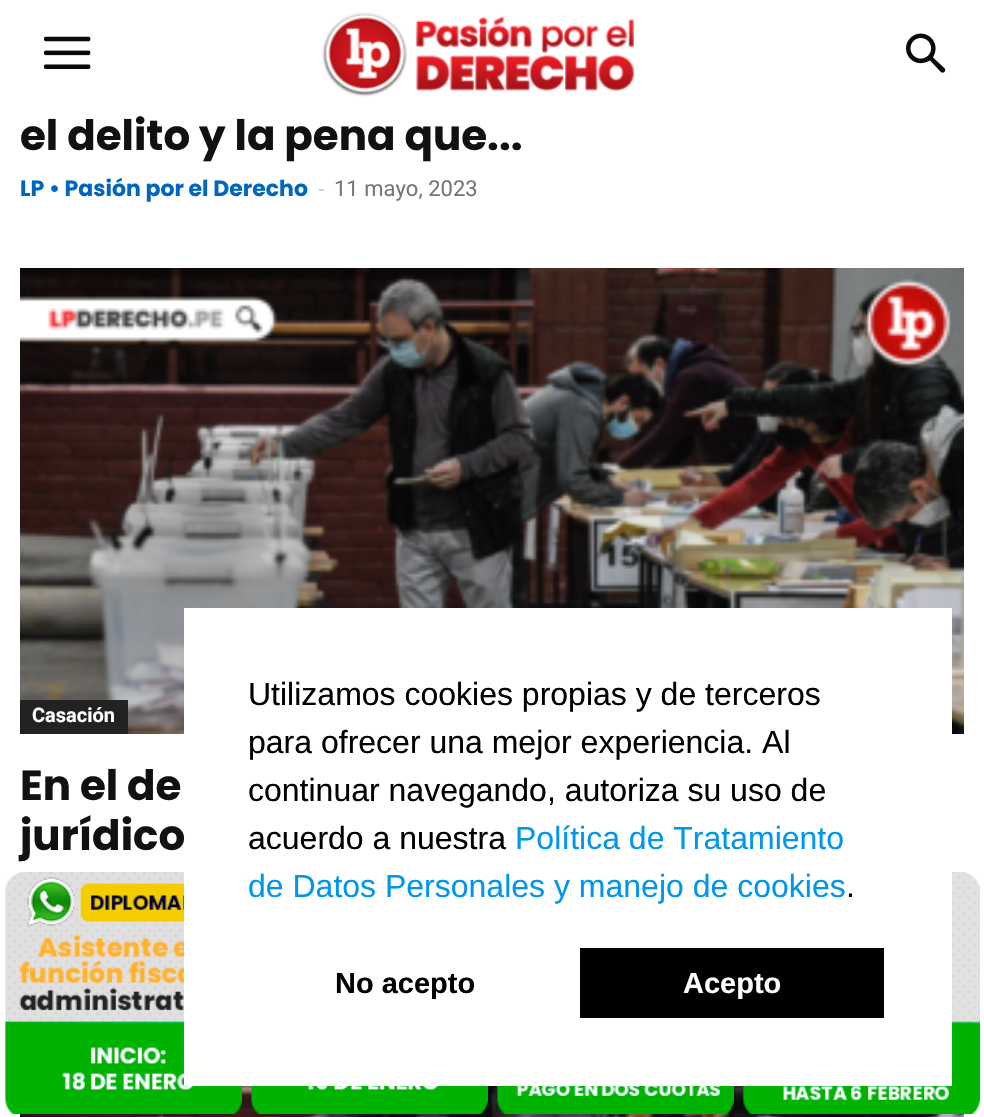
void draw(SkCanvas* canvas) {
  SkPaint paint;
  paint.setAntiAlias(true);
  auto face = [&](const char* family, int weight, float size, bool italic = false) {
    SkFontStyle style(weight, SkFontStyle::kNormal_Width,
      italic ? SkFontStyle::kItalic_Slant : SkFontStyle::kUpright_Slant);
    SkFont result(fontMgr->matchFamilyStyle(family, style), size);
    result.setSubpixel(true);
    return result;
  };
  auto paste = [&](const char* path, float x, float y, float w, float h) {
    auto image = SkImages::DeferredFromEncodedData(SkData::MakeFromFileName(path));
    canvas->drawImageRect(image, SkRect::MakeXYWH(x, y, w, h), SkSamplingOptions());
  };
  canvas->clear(0xffffffff);
  paste("img/1.png", 44, 36, 47, 33);
  paste("img/2.png", 322, 12, 312, 85);
  paste("img/3.png", 906, 33, 40, 40);
  paste("img/4.png", 20, 268, 944, 466);
  paint.setColor(0xff222222);
  canvas->drawRect(SkRect::MakeXYWH(20, 700, 108, 34), paint);
  paste("img/5.png", 20, 1086, 944, 31);
  paste("img/6.png", 5, 872, 237, 242);
  paste("img/9.png", 743, 872, 237, 242);
  paint.setColor(0xffffffff);
  canvas->drawRect(SkRect::MakeXYWH(184, 608, 768, 478), paint);
  paint.setColor(0xff000000);
  canvas->drawRect(SkRect::MakeXYWH(580, 948, 304, 70), paint);
  paste("img/7.png", 251, 1086, 237, 28);
  paste("img/8.png", 497, 1086, 237, 28);
  auto f0 = face("Poppins", 700, 42);
  paint.setColor(0xff111111);
  canvas->drawString("el delito y la pena que...", 20, 150, f0, paint);
  auto f1 = face("Poppins", 700, 22);
  paint.setColor(0xff0066bf);
  canvas->drawString("LP • Pasión por el Derecho", 20, 196, f1, paint);
  auto f2 = face("Open Sans", 400, 22);
  paint.setColor(0xffcccccc);
  canvas->drawString("-", 318, 196, f2, paint);
  auto f3 = face("Roboto", 400, 22);
  paint.setColor(0xff767676);
  canvas->drawString("11 mayo, 2023", 334, 196, f3, paint);
  auto f4 = face("Roboto", 700, 20);
  paint.setColor(0xffffffff);
  canvas->drawString("Casación", 32, 722, f4, paint);
  paint.setColor(0xff111111);
  canvas->drawString("En el de", 20, 800, f0, paint);
  canvas->drawString("jurídico", 20, 850, f0, paint);
  auto f5 = face("Liberation Sans", 400, 32);
  paint.setColor(0xff000000);
  {
    const struct { const char* s; float x, y; } items[] = {
      {"Utilizamos cookies propias y de terceros", 248, 705},
      {"para ofrecer una mejor experiencia. Al", 248, 753},
      {"continuar navegando, autoriza su uso de", 248, 801},
      {"acuerdo a nuestra", 248, 849},
    };
    for (auto [s, x, y] : items) {
      canvas->drawString(s, x, y, f5, paint);
    }
  }
  paint.setColor(0xff0096ed);
  canvas->drawString("Política de Tratamiento", 515, 849, f5, paint);
  canvas->drawString("de Datos Personales y manejo de cookies", 248, 897, f5, paint);
  paint.setColor(0xff000000);
  canvas->drawString(".", 846, 897, f5, paint);
  auto f6 = face("Liberation Sans", 700, 29);
  canvas->drawString("No acepto", 335, 993, f6, paint);
  paint.setColor(0xffffffff);
  canvas->drawString("Acepto", 683, 993, f6, paint);
}
